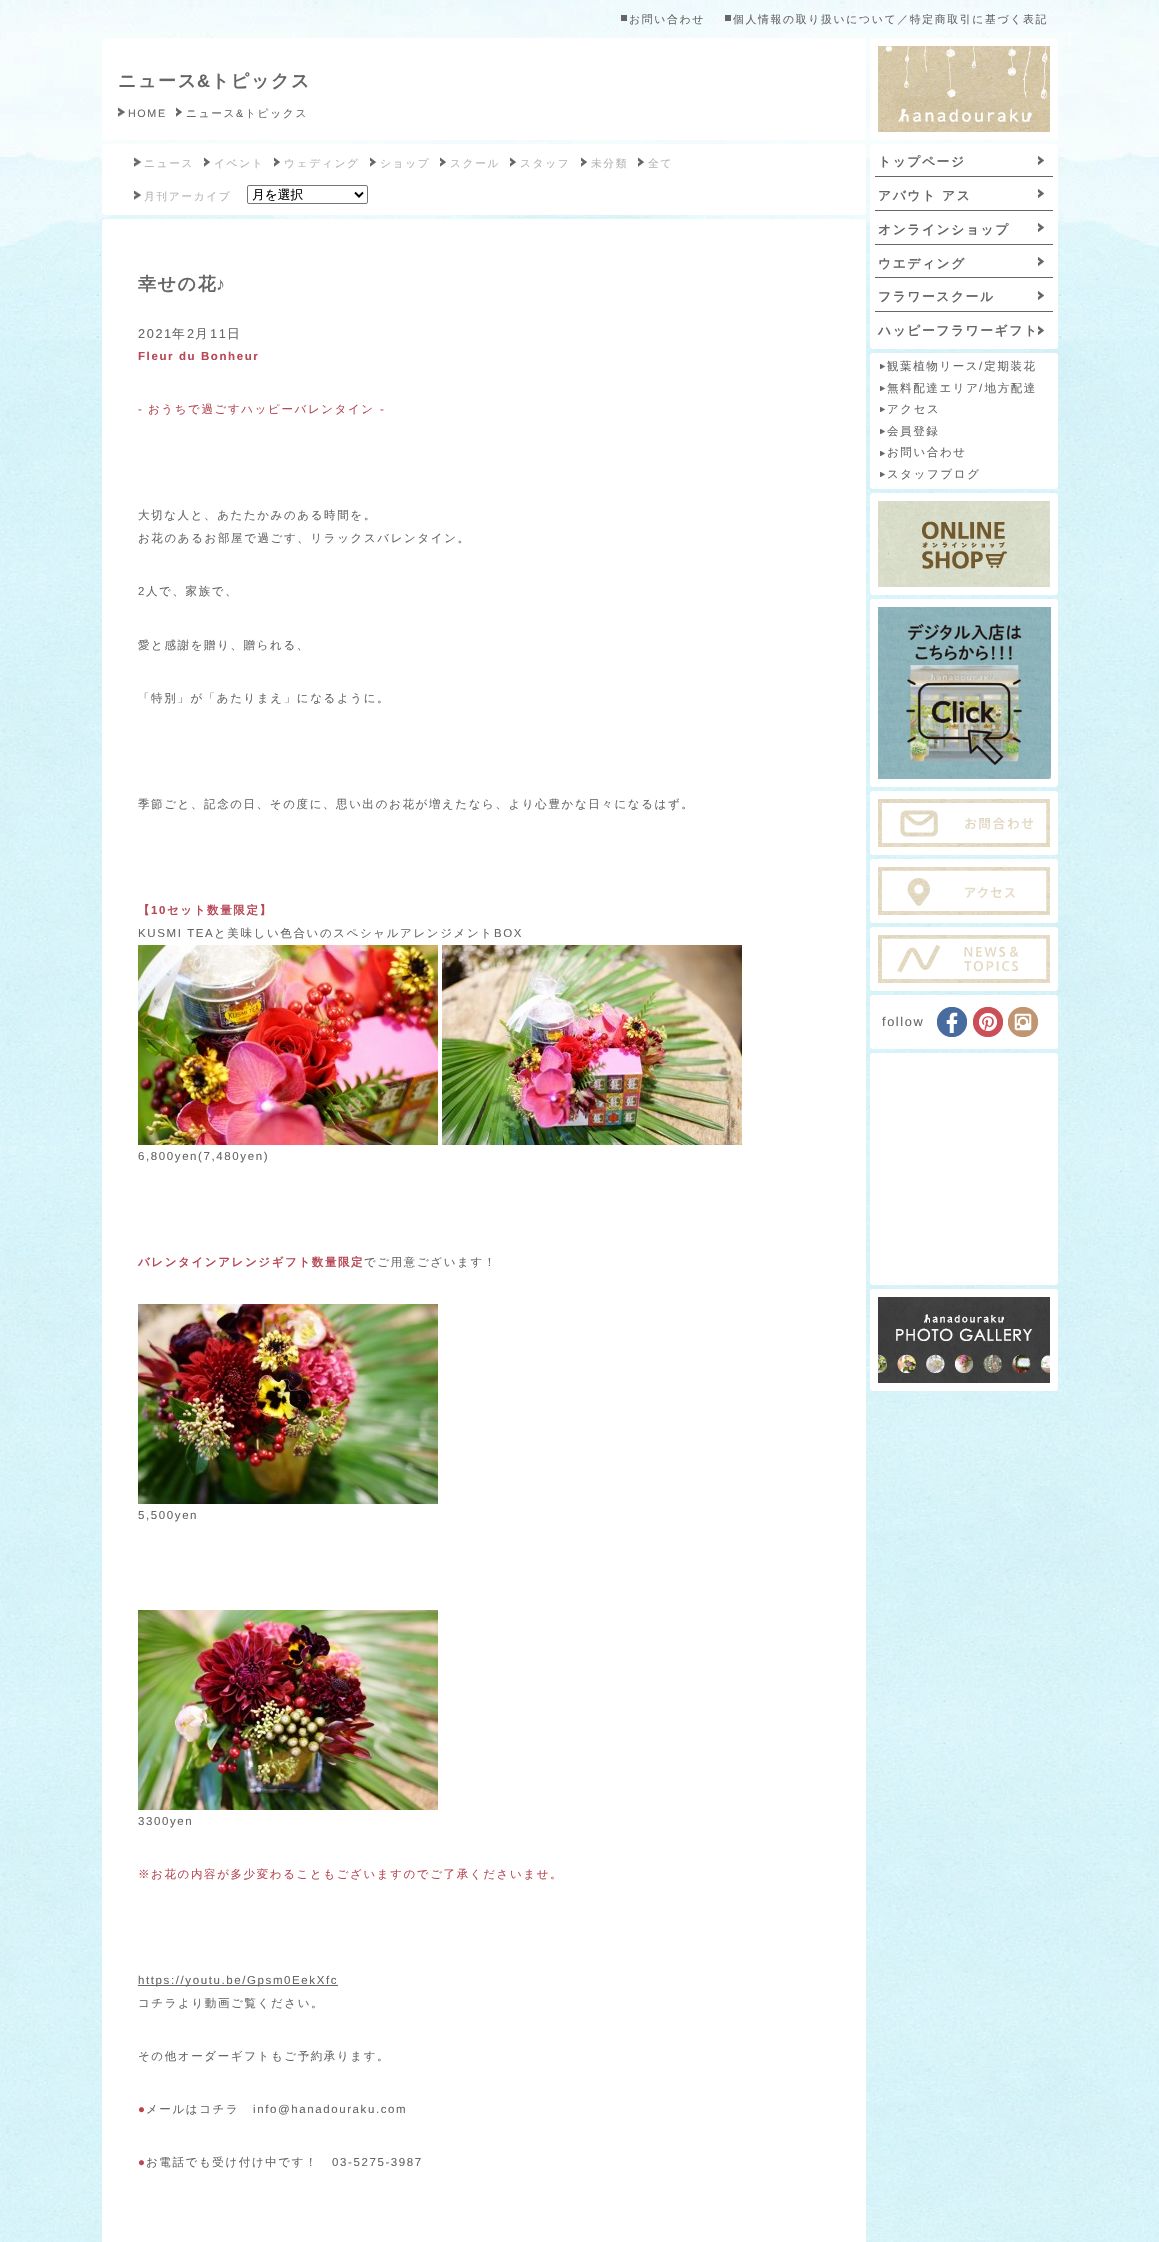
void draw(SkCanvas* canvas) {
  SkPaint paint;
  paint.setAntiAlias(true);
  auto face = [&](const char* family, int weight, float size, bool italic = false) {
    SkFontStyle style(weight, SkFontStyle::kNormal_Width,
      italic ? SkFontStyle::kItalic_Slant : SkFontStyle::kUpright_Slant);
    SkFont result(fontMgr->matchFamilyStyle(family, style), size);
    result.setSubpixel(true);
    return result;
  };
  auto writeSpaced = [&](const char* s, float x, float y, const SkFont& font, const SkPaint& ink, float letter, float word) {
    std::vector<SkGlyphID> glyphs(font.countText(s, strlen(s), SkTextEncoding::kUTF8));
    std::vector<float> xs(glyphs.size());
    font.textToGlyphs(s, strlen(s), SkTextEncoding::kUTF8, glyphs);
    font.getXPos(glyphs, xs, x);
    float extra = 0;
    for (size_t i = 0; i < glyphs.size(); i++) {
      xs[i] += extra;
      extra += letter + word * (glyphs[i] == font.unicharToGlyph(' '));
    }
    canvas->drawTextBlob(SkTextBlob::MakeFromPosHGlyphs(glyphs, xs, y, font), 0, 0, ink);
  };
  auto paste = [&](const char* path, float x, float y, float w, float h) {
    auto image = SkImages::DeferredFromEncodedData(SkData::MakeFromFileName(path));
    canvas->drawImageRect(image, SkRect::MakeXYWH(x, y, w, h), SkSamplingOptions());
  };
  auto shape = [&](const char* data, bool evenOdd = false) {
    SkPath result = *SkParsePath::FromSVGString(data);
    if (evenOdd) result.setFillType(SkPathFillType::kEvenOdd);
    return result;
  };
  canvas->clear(0xffffffff);
  paste("img/1.png", 0, 340, 1159, 1902);
  paste("img/2.png", 0, 0, 1159, 340);
  paint.setColor(0xff666666);
  canvas->drawRect(SkRect::MakeXYWH(621, 15, 6, 6), paint);
  canvas->drawRect(SkRect::MakeXYWH(725, 15, 6, 6), paint);
  paint.setColor(0xffffffff);
  canvas->drawRoundRect(SkRect::MakeXYWH(102, 38, 764, 102), 3, 3, paint);
  paste("img/3.png", 118, 107, 7, 10);
  paste("img/4.png", 176, 107, 6, 10);
  canvas->drawRoundRect(SkRect::MakeXYWH(102, 144, 764, 71), 3, 3, paint);
  paste("img/3.png", 134, 157, 7, 10);
  paste("img/4.png", 204, 157, 6, 10);
  paste("img/4.png", 274, 157, 6, 10);
  paste("img/4.png", 370, 157, 6, 10);
  paste("img/4.png", 440, 157, 6, 10);
  paste("img/4.png", 510, 157, 6, 10);
  paste("img/4.png", 581, 157, 6, 10);
  paste("img/4.png", 638, 157, 6, 10);
  paste("img/3.png", 134, 190, 7, 10);
  paint.setStroke(true);
  paint.setStrokeWidth(1);
  paint.setColor(0xff767676);
  canvas->drawRoundRect(SkRect::MakeXYWH(247.5f, 185.5f, 120, 18), 1.5f, 1.5f, paint);
  paint.setStrokeWidth(2);
  paint.setColor(0xff000000);
  canvas->drawPath(shape("M355 192.5L359 196.5L363 192.5"), paint);
  paint.setStroke(false);
  paint.setColor(0xffffffff);
  canvas->drawRoundRect(SkRect::MakeXYWH(870, 38, 188, 102), 3, 3, paint);
  paste("img/5.png", 878, 46, 172, 86);
  canvas->drawRoundRect(SkRect::MakeXYWH(870, 144, 188, 205), 3, 3, paint);
  paste("img/6.png", 1038, 156, 6, 9);
  paint.setColor(0xff666666);
  canvas->drawRect(SkRect::MakeXYWH(875, 176, 178, 1), paint);
  paste("img/6.png", 1038, 189, 6, 9);
  canvas->drawRect(SkRect::MakeXYWH(875, 210, 178, 1), paint);
  paste("img/6.png", 1038, 223, 6, 9);
  canvas->drawRect(SkRect::MakeXYWH(875, 244, 178, 1), paint);
  paste("img/6.png", 1038, 257, 6, 9);
  canvas->drawRect(SkRect::MakeXYWH(875, 277, 178, 1), paint);
  paste("img/6.png", 1038, 291, 6, 9);
  canvas->drawRect(SkRect::MakeXYWH(875, 311, 178, 1), paint);
  paste("img/6.png", 1038, 326, 6, 9);
  paint.setColor(0xffffffff);
  canvas->drawRoundRect(SkRect::MakeXYWH(870, 353, 188, 136), 3, 3, paint);
  paste("img/7.png", 880, 364, 5, 5);
  paste("img/7.png", 880, 386, 5, 5);
  paste("img/7.png", 880, 407, 5, 5);
  paste("img/7.png", 880, 429, 5, 5);
  paste("img/7.png", 880, 451, 5, 5);
  paste("img/7.png", 880, 472, 5, 5);
  canvas->drawRoundRect(SkRect::MakeXYWH(870, 493, 188, 102), 3, 3, paint);
  paste("img/8.png", 878, 501, 172, 86);
  canvas->drawRoundRect(SkRect::MakeXYWH(870, 599, 188, 188), 3, 3, paint);
  paste("img/9.png", 878, 607, 173, 172);
  canvas->drawRoundRect(SkRect::MakeXYWH(870, 791, 188, 64), 3, 3, paint);
  paste("img/10.png", 878, 799, 172, 48);
  canvas->drawRoundRect(SkRect::MakeXYWH(870, 859, 188, 64), 3, 3, paint);
  paste("img/11.png", 878, 867, 172, 48);
  canvas->drawRoundRect(SkRect::MakeXYWH(870, 927, 188, 64), 3, 3, paint);
  paste("img/12.png", 878, 935, 172, 48);
  canvas->drawRoundRect(SkRect::MakeXYWH(870, 995, 188, 54), 3, 3, paint);
  paste("img/13.png", 937, 1007, 30, 30);
  paste("img/14.png", 973, 1007, 30, 30);
  paste("img/15.png", 1008, 1007, 30, 30);
  canvas->drawRoundRect(SkRect::MakeXYWH(870, 1053, 188, 232), 3, 3, paint);
  canvas->drawRoundRect(SkRect::MakeXYWH(870, 1289, 188, 102), 3, 3, paint);
  paste("img/16.png", 878, 1297, 172, 86);
  canvas->drawRoundRect(SkRect::MakeXYWH(102, 219, 764, 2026), 3, 3, paint);
  paste("img/17.png", 138, 945, 300, 200);
  paste("img/18.png", 442, 945, 300, 200);
  paste("img/19.png", 138, 1304, 300, 200);
  paste("img/20.png", 138, 1610, 300, 200);
  paint.setColor(0xff666666);
  canvas->drawRect(SkRect::MakeXYWH(138, 1985, 200, 1), paint);
  auto f0 = face("WenQuanYi Zen Hei", 500, 10.9f);
  writeSpaced("お問い合わせ", 629, 23, f0, paint, 1.6f, 0);
  writeSpaced("個人情報の取り扱いについて／特定商取引に基づく表記", 733, 23, f0, paint, 1.6f, 0);
  auto f1 = face("WenQuanYi Zen Hei", 700, 18);
  writeSpaced("ニュース", 118, 87, f1, paint, 1.6f, 0);
  auto f2 = face("Liberation Sans", 700, 18);
  writeSpaced("&", 197, 87, f2, paint, 1.6f, 0);
  writeSpaced("トピックス", 211, 87, f1, paint, 1.6f, 0);
  auto f3 = face("Liberation Sans", 400, 10.75f);
  writeSpaced("HOME", 128, 117, f3, paint, 1.6f, 0);
  auto f4 = face("WenQuanYi Zen Hei", 500, 10.75f);
  writeSpaced("ニュース", 186, 117, f4, paint, 1.6f, 0);
  writeSpaced("&", 236, 117, f3, paint, 1.6f, 0);
  writeSpaced("トピックス", 245, 117, f4, paint, 1.6f, 0);
  paint.setColor(0xffb4b4b4);
  {
    const struct { const char* s; float x, y; } items[] = {
      {"ニュース", 144, 167},
      {"イベント", 214, 167},
      {"ウェディング", 284, 167},
      {"ショップ", 380, 167},
      {"スクール", 450, 167},
      {"スタッフ", 520, 167},
      {"未分類", 591, 167},
      {"全て", 648, 167},
      {"月刊アーカイブ", 144, 200},
    };
    for (auto [s, x, y] : items) {
      writeSpaced(s, x, y, f4, paint, 1.6f, 0);
    }
  }
  auto f5 = face("WenQuanYi Zen Hei", 500, 12.75f);
  paint.setColor(0xff000000);
  canvas->drawString("月を選択", 252, 199, f5, paint);
  auto f6 = face("WenQuanYi Zen Hei", 700, 12.75f);
  paint.setColor(0xff666666);
  {
    const struct { const char* s; float x, y; } items[] = {
      {"トップページ", 878, 166},
      {"アバウト アス", 878, 200},
      {"オンラインショップ", 878, 234},
      {"ウエディング", 878, 268},
      {"フラワースクール", 878, 301},
      {"ハッピーフラワーギフト", 878, 335},
    };
    for (auto [s, x, y] : items) {
      writeSpaced(s, x, y, f6, paint, 1.6f, 0);
    }
  }
  auto f7 = face("WenQuanYi Zen Hei", 500, 11.5f);
  writeSpaced("観葉植物リース 定期装花", 887, 370, f7, paint, 1.6f, 0);
  auto f8 = face("Liberation Sans", 400, 11.5f);
  writeSpaced("/", 979, 370, f8, paint, 1.6f, 0);
  writeSpaced("無料配達エリア 地方配達", 887, 392, f7, paint, 1.6f, 0);
  writeSpaced("/", 979, 392, f8, paint, 1.6f, 0);
  {
    const struct { const char* s; float x, y; } items[] = {
      {"アクセス", 887, 413},
      {"会員登録", 887, 435},
      {"お問い合わせ", 887, 456},
      {"スタッフブログ", 887, 478},
    };
    for (auto [s, x, y] : items) {
      writeSpaced(s, x, y, f7, paint, 1.6f, 0);
    }
  }
  auto f9 = face("Liberation Sans", 400, 12.75f);
  writeSpaced("follow", 882, 1026, f9, paint, 1.6f, 0);
  writeSpaced("幸せの花", 138, 290, f1, paint, 1.6f, 0);
  writeSpaced("♪", 216, 290, f2, paint, 1.6f, 0);
  writeSpaced("2021", 138, 338, f9, paint, 1.6f, 0);
  writeSpaced("年", 172, 338, f5, paint, 1.6f, 0);
  writeSpaced("2", 187, 338, f9, paint, 1.6f, 0);
  writeSpaced("月", 195, 338, f5, paint, 1.6f, 0);
  writeSpaced("11", 210, 338, f9, paint, 1.6f, 0);
  writeSpaced("日", 227, 338, f5, paint, 1.6f, 0);
  auto f10 = face("Liberation Sans", 700, 11.5f);
  paint.setColor(0xffb74855);
  writeSpaced("Fleur du Bonheur", 138, 360, f10, paint, 1.6f, 0);
  writeSpaced("-", 138, 413, f8, paint, 1.6f, 0);
  writeSpaced("おうちで過ごすハッピーバレンタイン", 148, 413, f7, paint, 1.6f, 0);
  writeSpaced("-", 380, 413, f8, paint, 1.6f, 0);
  paint.setColor(0xff666666);
  writeSpaced("大切な人と、あたたかみのある時間を。", 138, 519, f7, paint, 1.6f, 0);
  writeSpaced("お花のあるお部屋で過ごす、リラックスバレンタイン。", 138, 542, f7, paint, 1.6f, 0);
  writeSpaced("2", 138, 595, f8, paint, 1.6f, 0);
  {
    const struct { const char* s; float x, y; } items[] = {
      {"人で、家族で、", 146, 595},
      {"愛と感謝を贈り、贈られる、", 138, 649},
      {"「特別」が「あたりまえ」になるように。", 138, 702},
      {"季節ごと、記念の日、その度に、思い出のお花が増えたなら、より心豊かな日々になるはず。", 138, 808},
    };
    for (auto [s, x, y] : items) {
      writeSpaced(s, x, y, f7, paint, 1.6f, 0);
    }
  }
  auto f11 = face("WenQuanYi Zen Hei", 700, 11.5f);
  paint.setColor(0xffb74855);
  writeSpaced("【", 138, 914, f11, paint, 1.6f, 0);
  writeSpaced("10", 151, 914, f10, paint, 1.6f, 0);
  writeSpaced("セット数量限定】", 167, 914, f11, paint, 1.6f, 0);
  paint.setColor(0xff666666);
  writeSpaced("KUSMI TEA", 138, 937, f8, paint, 1.6f, 0);
  writeSpaced("と美味しい色合いのスペシャルアレンジメント", 214, 937, f7, paint, 1.6f, 0);
  writeSpaced("BOX", 494, 937, f8, paint, 1.6f, 0);
  writeSpaced("6,800yen(7,480yen)", 138, 1160, f8, paint, 1.6f, 0);
  paint.setColor(0xffb74855);
  writeSpaced("バレンタインアレンジギフト数量限定", 138, 1266, f11, paint, 1.6f, 0);
  paint.setColor(0xff666666);
  writeSpaced("でご用意ございます！", 364, 1266, f7, paint, 1.6f, 0);
  writeSpaced("5,500yen", 138, 1519, f8, paint, 1.6f, 0);
  writeSpaced("3300yen", 138, 1825, f8, paint, 1.6f, 0);
  paint.setColor(0xffb74855);
  writeSpaced("※お花の内容が多少変わることもございますのでご了承くださいませ。", 138, 1878, f7, paint, 1.6f, 0);
  paint.setColor(0xff666666);
  writeSpaced("https://youtu.be/Gpsm0EekXfc", 138, 1984, f8, paint, 1.6f, 0);
  writeSpaced("コチラより動画ご覧ください。", 138, 2007, f7, paint, 1.6f, 0);
  writeSpaced("その他オーダーギフトもご予約承ります。", 138, 2060, f7, paint, 1.6f, 0);
  paint.setColor(0xffbc434d);
  writeSpaced("●", 138, 2113, f8, paint, 1.6f, 0);
  paint.setColor(0xff666666);
  writeSpaced("メールはコチラ", 146, 2113, f7, paint, 1.6f, 0);
  writeSpaced("info@hanadouraku.com", 253, 2113, f8, paint, 1.6f, 0);
  paint.setColor(0xffb74855);
  writeSpaced("●", 138, 2166, f8, paint, 1.6f, 0);
  paint.setColor(0xff666666);
  writeSpaced("お電話でも受け付け中です！", 146, 2166, f7, paint, 1.6f, 0);
  writeSpaced("03-5275-3987", 332, 2166, f8, paint, 1.6f, 0);
}
